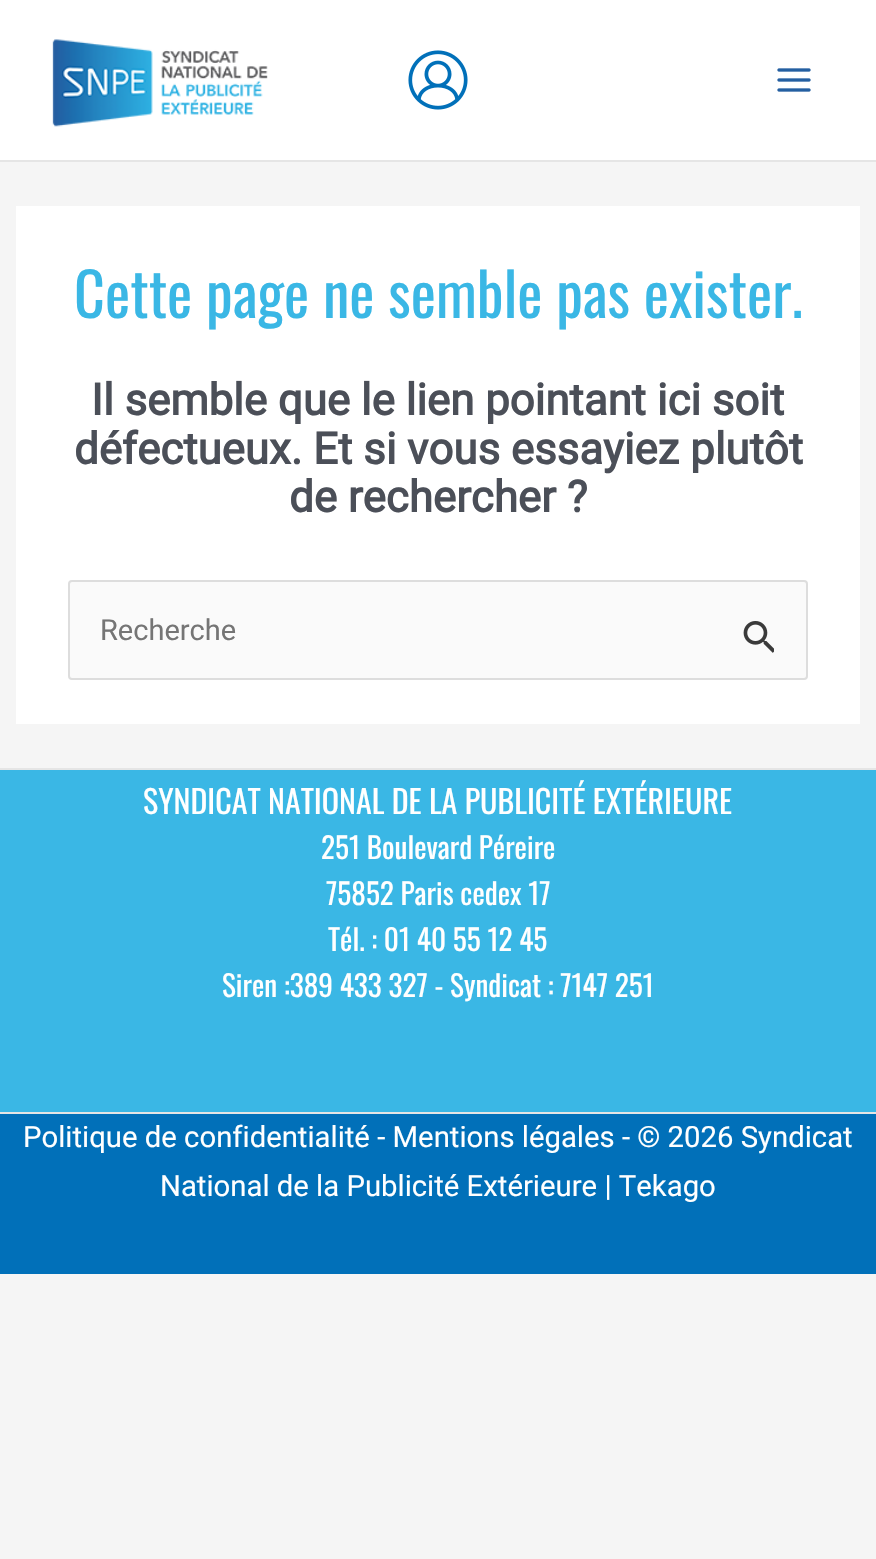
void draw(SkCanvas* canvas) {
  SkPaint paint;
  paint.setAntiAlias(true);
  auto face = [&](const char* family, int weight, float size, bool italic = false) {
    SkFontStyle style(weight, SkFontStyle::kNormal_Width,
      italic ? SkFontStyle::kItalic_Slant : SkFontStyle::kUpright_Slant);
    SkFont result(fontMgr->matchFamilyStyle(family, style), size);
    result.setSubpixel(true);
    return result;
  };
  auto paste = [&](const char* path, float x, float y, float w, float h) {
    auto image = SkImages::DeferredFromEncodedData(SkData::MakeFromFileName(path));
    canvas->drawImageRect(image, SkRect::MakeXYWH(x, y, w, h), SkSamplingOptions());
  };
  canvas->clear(0xfff5f5f5);
  paint.setColor(0xffffffff);
  canvas->drawRect(SkRect::MakeXYWH(0, 0, 876, 160), paint);
  paint.setColor(0xffe5e5e5);
  canvas->drawRect(SkRect::MakeXYWH(0, 160, 876, 2), paint);
  paste("img/1.png", 52, 39, 216, 88);
  paste("img/2.png", 408, 50, 60, 60);
  paste("img/3.png", 777, 68, 34, 24);
  paint.setColor(0xffffffff);
  canvas->drawRect(SkRect::MakeXYWH(16, 206, 844, 518), paint);
  paint.setColor(0xfffafafa);
  canvas->drawRoundRect(SkRect::MakeXYWH(69, 581, 738, 98), 3, 3, paint);
  paint.setStroke(true);
  paint.setStrokeWidth(2);
  paint.setColor(0xffdddddd);
  canvas->drawRoundRect(SkRect::MakeXYWH(69, 581, 738, 98), 3, 3, paint);
  paste("img/4.png", 743, 621, 31, 32);
  paint.setStroke(false);
  {
    const struct { float x, y, w, h; SkColor color; } items[] = {
      {0, 770, 876, 342, 0xff3ab7e5},
      {0, 768, 876, 2, 0xffe5e5e5},
      {0, 1114, 876, 160, 0xff0170b9},
      {0, 1112, 876, 2, 0xffe5e5e5},
    };
    for (auto [x, y, w, h, color] : items) {
      paint.setColor(color);
      canvas->drawRect(SkRect::MakeXYWH(x, y, w, h), paint);
    }
  }
  auto f0 = face("Oswald", 400, 60);
  paint.setColor(0xff3ab7e5);
  canvas->drawString("Cette page ne semble pas exister.", 74, 318, f0, paint);
  auto f1 = face("Roboto", 700, 43.75f);
  paint.setColor(0xff4b4f58);
  {
    const struct { const char* s; float x, y; } items[] = {
      {"Il semble que le lien pointant ici soit", 91, 415},
      {"défectueux. Et si vous essayiez plutôt", 74, 464},
      {"de rechercher ?", 289, 512},
    };
    for (auto [s, x, y] : items) {
      canvas->drawString(s, x, y, f1, paint);
    }
  }
  auto f2 = face("Roboto", 400, 29);
  paint.setColor(0xff757575);
  canvas->drawString("Recherche", 100, 640, f2, paint);
  auto f3 = face("Oswald", 400, 32);
  paint.setColor(0xffffffff);
  canvas->drawString("SYNDICAT NATIONAL DE LA PUBLICITÉ EXTÉRIEURE", 143, 814, f3, paint);
  auto f4 = face("Oswald", 400, 29.3f);
  {
    const struct { const char* s; float x, y; } items[] = {
      {"251 Boulevard Péreire", 321, 859},
      {"75852 Paris cedex 17", 326, 905},
      {"Tél. : 01 40 55 12 45", 328, 951},
      {"Siren :389 433 327 - Syndicat : 7147 251", 222, 997},
    };
    for (auto [s, x, y] : items) {
      canvas->drawString(s, x, y, f4, paint);
    }
  }
  auto f5 = face("Roboto", 400, 29.3f);
  canvas->drawString("Politique de confidentialité - Mentions légales - © 2026 Syndicat", 23, 1147, f5, paint);
  canvas->drawString("National de la Publicité Extérieure | Tekago", 160, 1196, f5, paint);
}
